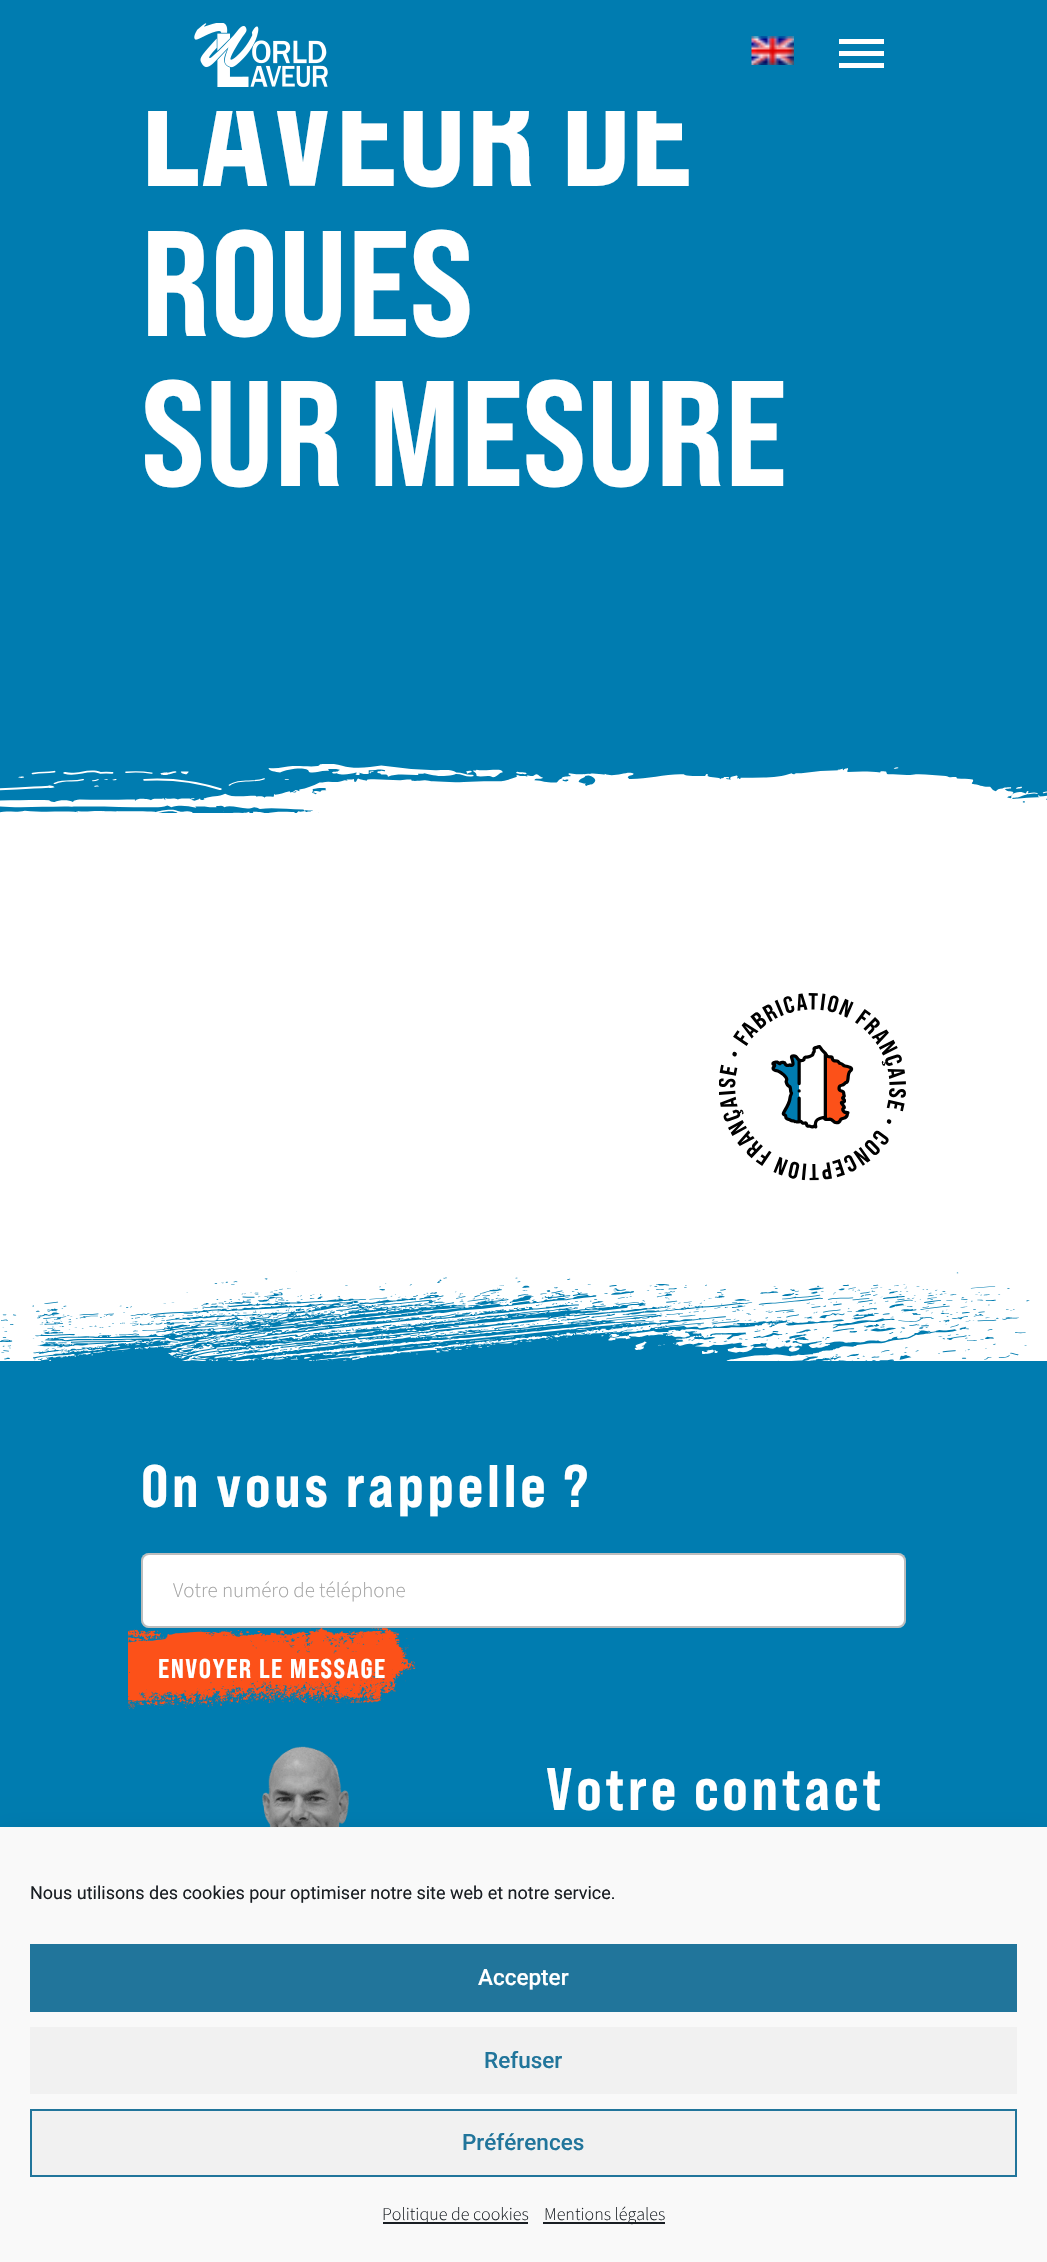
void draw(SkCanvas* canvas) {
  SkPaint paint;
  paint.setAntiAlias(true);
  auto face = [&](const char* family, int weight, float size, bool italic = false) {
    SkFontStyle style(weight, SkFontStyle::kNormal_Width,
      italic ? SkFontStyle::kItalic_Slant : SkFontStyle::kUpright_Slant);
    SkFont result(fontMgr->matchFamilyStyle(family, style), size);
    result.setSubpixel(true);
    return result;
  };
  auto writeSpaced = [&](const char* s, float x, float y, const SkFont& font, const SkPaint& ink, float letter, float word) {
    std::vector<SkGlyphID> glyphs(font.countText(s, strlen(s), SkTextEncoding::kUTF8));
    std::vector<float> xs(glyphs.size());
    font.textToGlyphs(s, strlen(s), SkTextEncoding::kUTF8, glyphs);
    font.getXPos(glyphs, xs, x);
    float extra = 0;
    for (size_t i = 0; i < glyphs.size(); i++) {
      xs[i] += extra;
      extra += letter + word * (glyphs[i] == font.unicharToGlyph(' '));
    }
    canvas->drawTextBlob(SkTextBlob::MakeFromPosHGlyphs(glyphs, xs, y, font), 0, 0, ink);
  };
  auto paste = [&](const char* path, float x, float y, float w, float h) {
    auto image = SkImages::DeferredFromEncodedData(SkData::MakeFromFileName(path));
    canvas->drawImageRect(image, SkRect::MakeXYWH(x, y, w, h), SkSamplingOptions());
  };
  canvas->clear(0xffffffff);
  paint.setColor(0xff007cb0);
  canvas->drawRect(SkRect::MakeXYWH(0, 111, 1047, 702), paint);
  paste("img/3.png", 0, 764, 1047, 49);
  paste("img/4.png", 719, 993, 187, 188);
  canvas->drawRect(SkRect::MakeXYWH(0, 1361, 1047, 466), paint);
  paste("img/5.png", 0, 1271, 1030, 90);
  paint.setColor(0xffffffff);
  canvas->drawRoundRect(SkRect::MakeXYWH(141, 1553, 765, 75), 8, 8, paint);
  paint.setStroke(true);
  paint.setStrokeWidth(2);
  paint.setColor(0x4d262626);
  canvas->drawRoundRect(SkRect::MakeXYWH(142, 1554, 763, 73), 7, 7, paint);
  paste("img/6.png", 128, 1628, 288, 81);
  paste("img/7.png", 261, 1746, 89, 81);
  paint.setStroke(false);
  paint.setColor(0x30000000);
  paint.setMaskFilter(SkMaskFilter::MakeBlur(kNormal_SkBlurStyle, 15));
  canvas->drawRect(SkRect::MakeXYWH(0, 1842, 1047, 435), paint);
  paint.setMaskFilter(nullptr);
  {
    const struct { float x, y, w, h; SkColor color; } items[] = {
      {0, 1828, 1047, 434, 0xfff9f9f9},
      {30, 1944, 987, 68, 0xff21759b},
      {30, 2027, 987, 67, 0xfff1f1f1},
    };
    for (auto [x, y, w, h, color] : items) {
      paint.setColor(color);
      canvas->drawRect(SkRect::MakeXYWH(x, y, w, h), paint);
    }
  }
  canvas->drawRect(SkRect::MakeXYWH(31, 2110, 985, 66), paint);
  paint.setStroke(true);
  paint.setColor(0xff21759b);
  canvas->drawRect(SkRect::MakeXYWH(31, 2110, 985, 66), paint);
  paint.setStroke(false);
  paint.setColor(0xff191e23);
  canvas->drawRect(SkRect::MakeXYWH(383, 2222, 145, 2), paint);
  canvas->drawRect(SkRect::MakeXYWH(543, 2222, 122, 2), paint);
  auto f0 = face("Bebas Neue", 800, 150);
  paint.setColor(0xffffffff);
  canvas->drawString("LAVEUR DE", 141, 186, f0, paint);
  {
    const struct { float x, y, w, h; SkColor color; } items[] = {
      {0, 0, 1047, 111, 0xff007cb0},
      {839, 63, 45, 5, 0xffffffff},
      {839, 39, 45, 5, 0xffffffff},
      {839, 51, 45, 5, 0xffffffff},
    };
    for (auto [x, y, w, h, color] : items) {
      paint.setColor(color);
      canvas->drawRect(SkRect::MakeXYWH(x, y, w, h), paint);
    }
  }
  paste("img/2.png", 751, 36, 43, 29);
  paste("img/1.png", 194, 23, 134, 64);
  canvas->drawString("ROUES", 141, 336, f0, paint);
  canvas->drawString("SUR MESURE", 141, 486, f0, paint);
  auto f1 = face("Bebas Neue", 800, 60);
  writeSpaced("On vous rappelle ?", 141, 1507, f1, paint, 3.75f, 0);
  auto f2 = face("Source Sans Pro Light", 300, 21);
  paint.setColor(0xffa1a1a1);
  canvas->drawString("Votre numéro de téléphone", 173, 1597, f2, paint);
  auto f3 = face("Bebas Neue", 800, 27);
  paint.setColor(0xffffffff);
  writeSpaced("ENVOYER LE MESSAGE", 158, 1678, f3, paint, 1.5f, 0);
  writeSpaced("Votre contact", 546, 1810, f1, paint, 3.75f, 0);
  auto f4 = face("Roboto", 400, 18);
  paint.setColor(0xff191e23);
  canvas->drawString("Nous utilisons des cookies pour optimiser notre site web et notre service.", 30, 1899, f4, paint);
  auto f5 = face("Roboto", 500, 22.5f);
  paint.setColor(0xffffffff);
  canvas->drawString("Accepter", 478, 1985, f5, paint);
  paint.setColor(0xff21759b);
  canvas->drawString("Refuser", 484, 2068, f5, paint);
  canvas->drawString("Préférences", 462, 2150, f5, paint);
  auto f6 = face("Source Sans Pro Light", 300, 18);
  paint.setColor(0xff191e23);
  canvas->drawString("Politique de cookies", 382, 2220, f6, paint);
  canvas->drawString("Mentions légales", 544, 2220, f6, paint);
}
